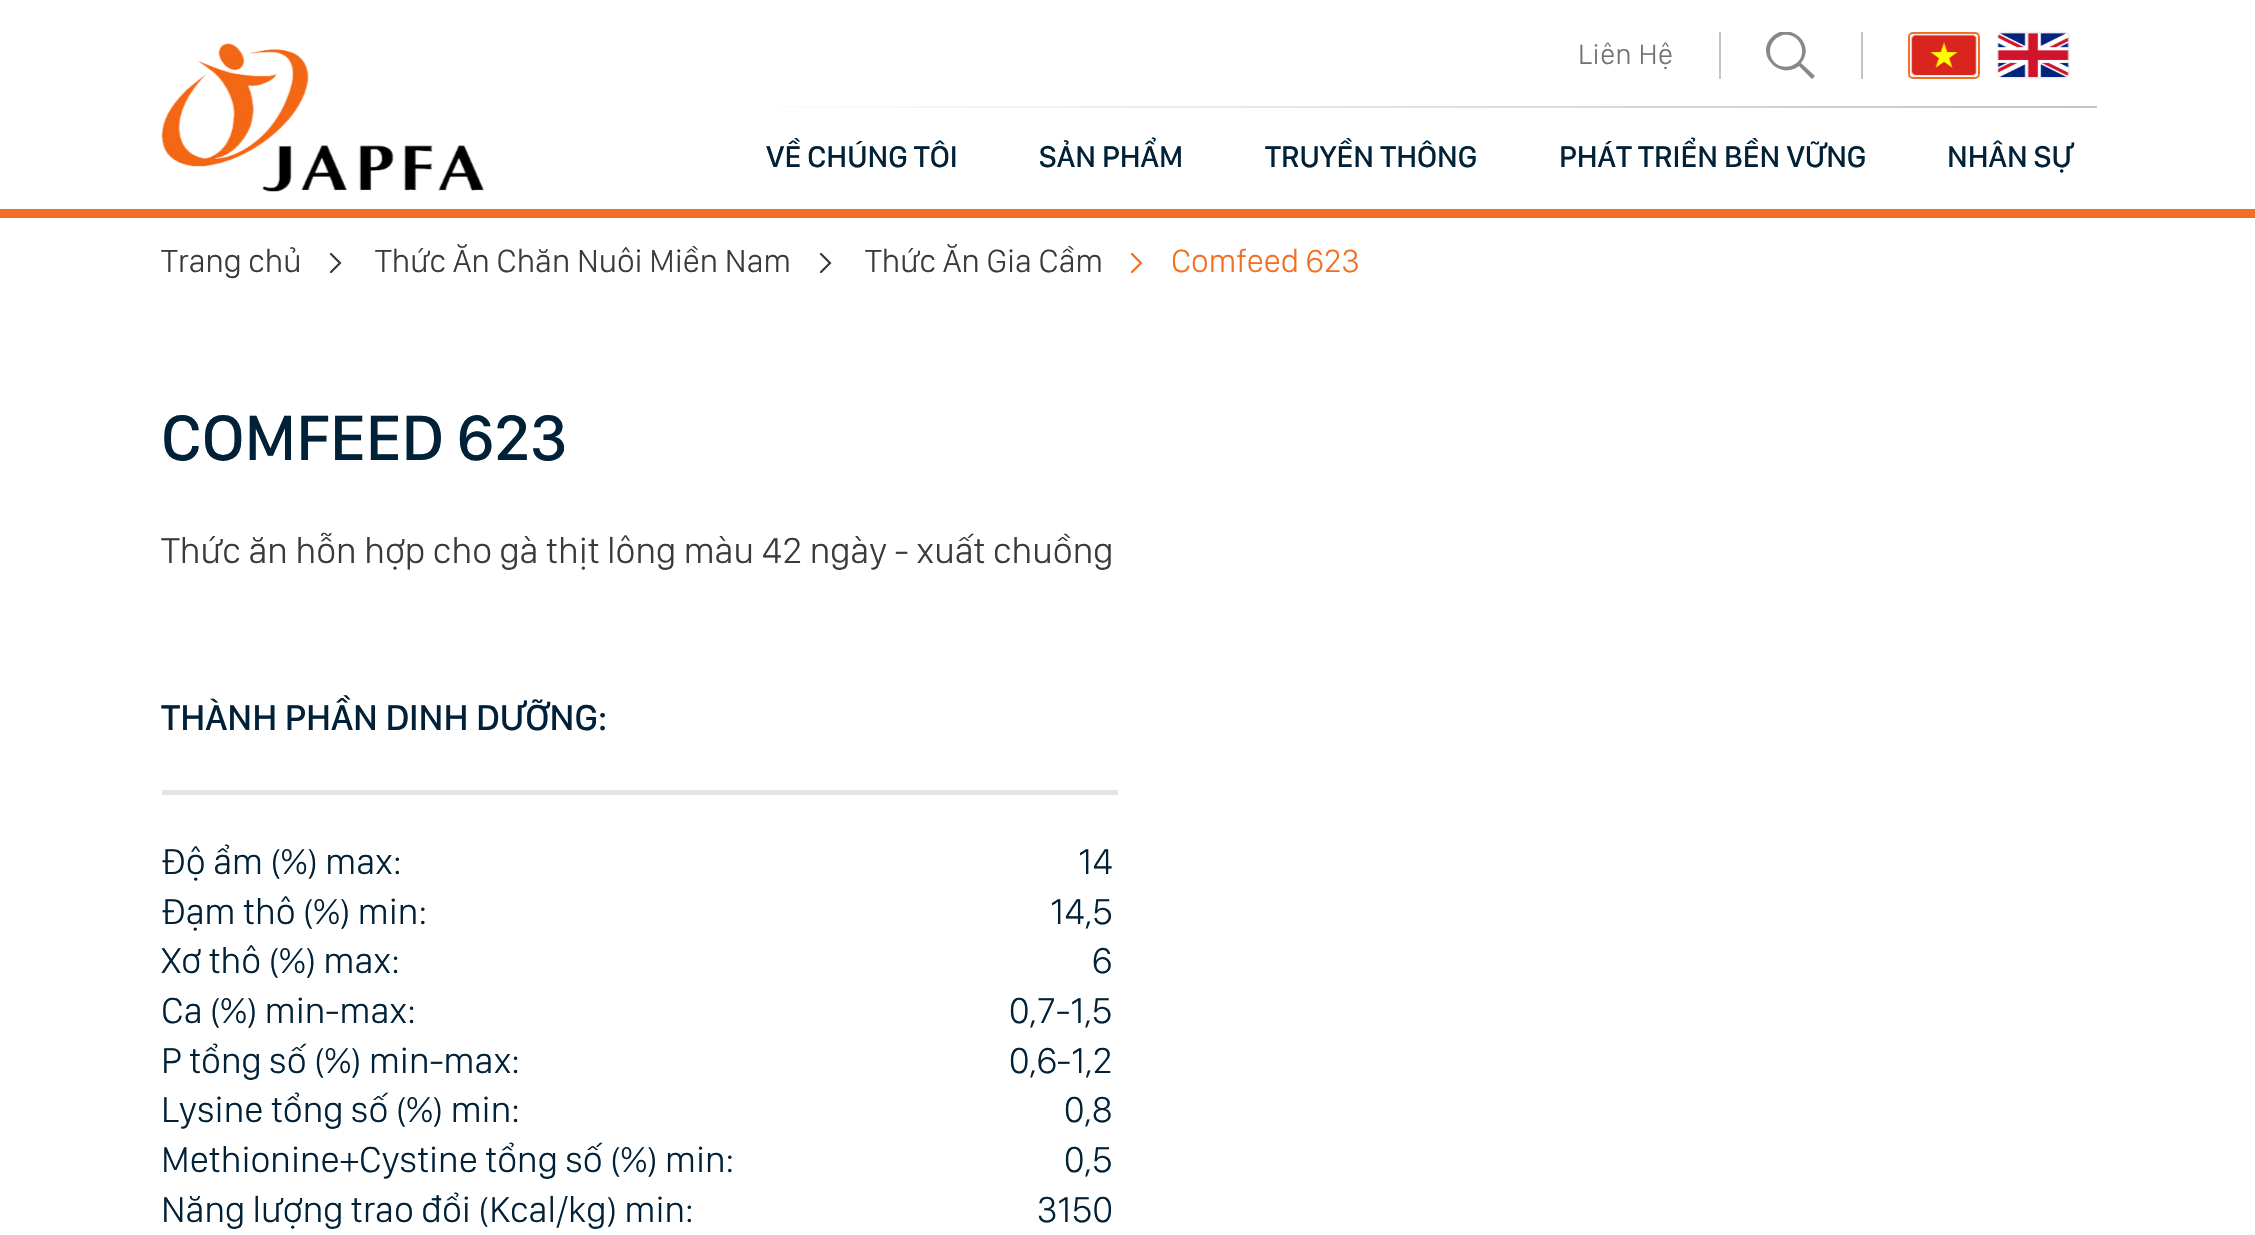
void draw(SkCanvas* canvas) {
  SkPaint paint;
  paint.setAntiAlias(true);
  auto face = [&](const char* family, int weight, float size, bool italic = false) {
    SkFontStyle style(weight, SkFontStyle::kNormal_Width,
      italic ? SkFontStyle::kItalic_Slant : SkFontStyle::kUpright_Slant);
    SkFont result(fontMgr->matchFamilyStyle(family, style), size);
    result.setSubpixel(true);
    return result;
  };
  auto writeSpaced = [&](const char* s, float x, float y, const SkFont& font, const SkPaint& ink, float letter, float word) {
    std::vector<SkGlyphID> glyphs(font.countText(s, strlen(s), SkTextEncoding::kUTF8));
    std::vector<float> xs(glyphs.size());
    font.textToGlyphs(s, strlen(s), SkTextEncoding::kUTF8, glyphs);
    font.getXPos(glyphs, xs, x);
    float extra = 0;
    for (size_t i = 0; i < glyphs.size(); i++) {
      xs[i] += extra;
      extra += letter + word * (glyphs[i] == font.unicharToGlyph(' '));
    }
    canvas->drawTextBlob(SkTextBlob::MakeFromPosHGlyphs(glyphs, xs, y, font), 0, 0, ink);
  };
  auto paste = [&](const char* path, float x, float y, float w, float h) {
    auto image = SkImages::DeferredFromEncodedData(SkData::MakeFromFileName(path));
    canvas->drawImageRect(image, SkRect::MakeXYWH(x, y, w, h), SkSamplingOptions());
  };
  auto shape = [&](const char* data, bool evenOdd = false) {
    SkPath result = *SkParsePath::FromSVGString(data);
    if (evenOdd) result.setFillType(SkPathFillType::kEvenOdd);
    return result;
  };
  canvas->clear(0xffffffff);
  paste("img/1.png", 161, 43, 323, 149);
  paint.setColor(0xffc4c4c4);
  canvas->drawRect(SkRect::MakeXYWH(1719, 32, 2, 47), paint);
  canvas->save();
  canvas->clipRect(SkRect::MakeXYWH(1766, 32, 50, 47));
  paint.setColor(0xff888888);
  canvas->drawPath(shape("M1815 76L1801 63C1817 44 1789 20 1772 37C1754 54 1780 81 1799 66L1812 79ZM1770 51C1770 43 1776 37 1783 35C1803 32 1810 60 1791 66C1787 67 1782 67 1778 65C1773 62 1770 57 1770 51Z"), paint);
  canvas->restore();
  paint.setColor(0xffc4c4c4);
  canvas->drawRect(SkRect::MakeXYWH(1861, 32, 2, 47), paint);
  paint.setStroke(true);
  paint.setStrokeWidth(2);
  paint.setColor(0xfff26f21);
  canvas->drawRoundRect(SkRect::MakeXYWH(1909, 33, 70, 45), 4, 4, paint);
  paste("img/2.png", 1909, 33, 69, 44);
  paste("img/3.png", 1997, 31, 73, 48);
  paint.setStroke(false);
  {
    const SkColor colors[] = {0xffffffff, 0xffd0d0d0, 0xffc4c4c4};
    const float stops[] = {0, 0.8f, 1};
    const SkPoint ends[] = {{718, 107}, {2097, 107}};
    paint.setShader(SkGradientShader::MakeLinear(ends, colors, stops, 3, SkTileMode::kClamp));
    paint.setAlpha(255);
  }
  canvas->drawRect(SkRect::MakeXYWH(777, 106, 1320, 2), paint);
  paint.setShader(nullptr);
  paint.setColor(0xfff26f21);
  canvas->drawRect(SkRect::MakeXYWH(0, 209, 2255, 9), paint);
  paint.setStroke(true);
  paint.setStrokeWidth(2.2f);
  paint.setStrokeCap(SkPaint::kRound_Cap);
  paint.setColor(0xff3a3a3a);
  canvas->drawPath(shape("M331 254L340 263L331 272"), paint);
  canvas->drawPath(shape("M821 254L830 263L821 272"), paint);
  paint.setColor(0xfff26f21);
  canvas->drawPath(shape("M1132 254L1141 263L1132 272"), paint);
  paint.setStroke(false);
  paint.setColor(0xffe5e5e5);
  canvas->drawRect(SkRect::MakeXYWH(162, 790, 956, 5), paint);
  auto f0 = face("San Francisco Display", 300, 29);
  paint.setColor(0xff717171);
  writeSpaced("Liên Hệ", 1578, 64, f0, paint, 0.5f, 0);
  auto f1 = face("San Francisco Display", 500, 31);
  paint.setColor(0xff002137);
  {
    const struct { const char* s; float x, y; } items[] = {
      {"VỀ CHÚNG TÔI", 766, 167},
      {"SẢN PHẨM", 1039, 167},
      {"TRUYỀN THÔNG", 1265, 167},
      {"PHÁT TRIỂN BỀN VỮNG", 1559, 167},
      {"NHÂN SỰ", 1947, 167},
    };
    for (auto [s, x, y] : items) {
      canvas->drawString(s, x, y, f1, paint);
    }
  }
  auto f2 = face("San Francisco Display", 300, 33.1f);
  paint.setColor(0xff3a3a3a);
  {
    const struct { const char* s; float x, y; } items[] = {
      {"Trang chủ", 161, 272},
      {"Thức Ăn Chăn Nuôi Miền Nam", 375, 272},
      {"Thức Ăn Gia Cầm", 865, 272},
    };
    for (auto [s, x, y] : items) {
      canvas->drawString(s, x, y, f2, paint);
    }
  }
  paint.setColor(0xfff26f21);
  canvas->drawString("Comfeed 623", 1171, 272, f2, paint);
  auto f3 = face("San Francisco Display", 500, 66.25f);
  paint.setColor(0xff002137);
  canvas->drawString("COMFEED 623", 161, 460, f3, paint);
  auto f4 = face("San Francisco Display", 300, 37.25f);
  paint.setColor(0xff3a3a3a);
  canvas->drawString("Thức ăn hỗn hợp cho gà thịt lông màu 42 ngày - xuất chuồng", 161, 563, f4, paint);
  auto f5 = face("San Francisco Display", 500, 37.25f);
  paint.setColor(0xff002137);
  canvas->drawString("THÀNH PHẦN DINH DƯỠNG:", 161, 730, f5, paint);
  {
    const struct { const char* s; float x, y; } items[] = {
      {"Độ ẩm (%) max:", 161, 874},
      {"14", 1078, 874},
      {"Đạm thô (%) min:", 161, 924},
      {"14,5", 1050, 924},
      {"Xơ thô (%) max:", 161, 973},
      {"6", 1092, 973},
      {"Ca (%) min-max:", 161, 1023},
      {"0,7-1,5", 1009, 1023},
      {"P tổng số (%) min-max:", 161, 1073},
      {"0,6-1,2", 1009, 1073},
      {"Lysine tổng số (%) min:", 161, 1122},
      {"0,8", 1064, 1122},
      {"Methionine+Cystine tổng số (%) min:", 161, 1172},
      {"0,5", 1064, 1172},
      {"Năng lượng trao đổi (Kcal/kg) min:", 161, 1222},
      {"3150", 1037, 1222},
    };
    for (auto [s, x, y] : items) {
      canvas->drawString(s, x, y, f4, paint);
    }
  }
}
